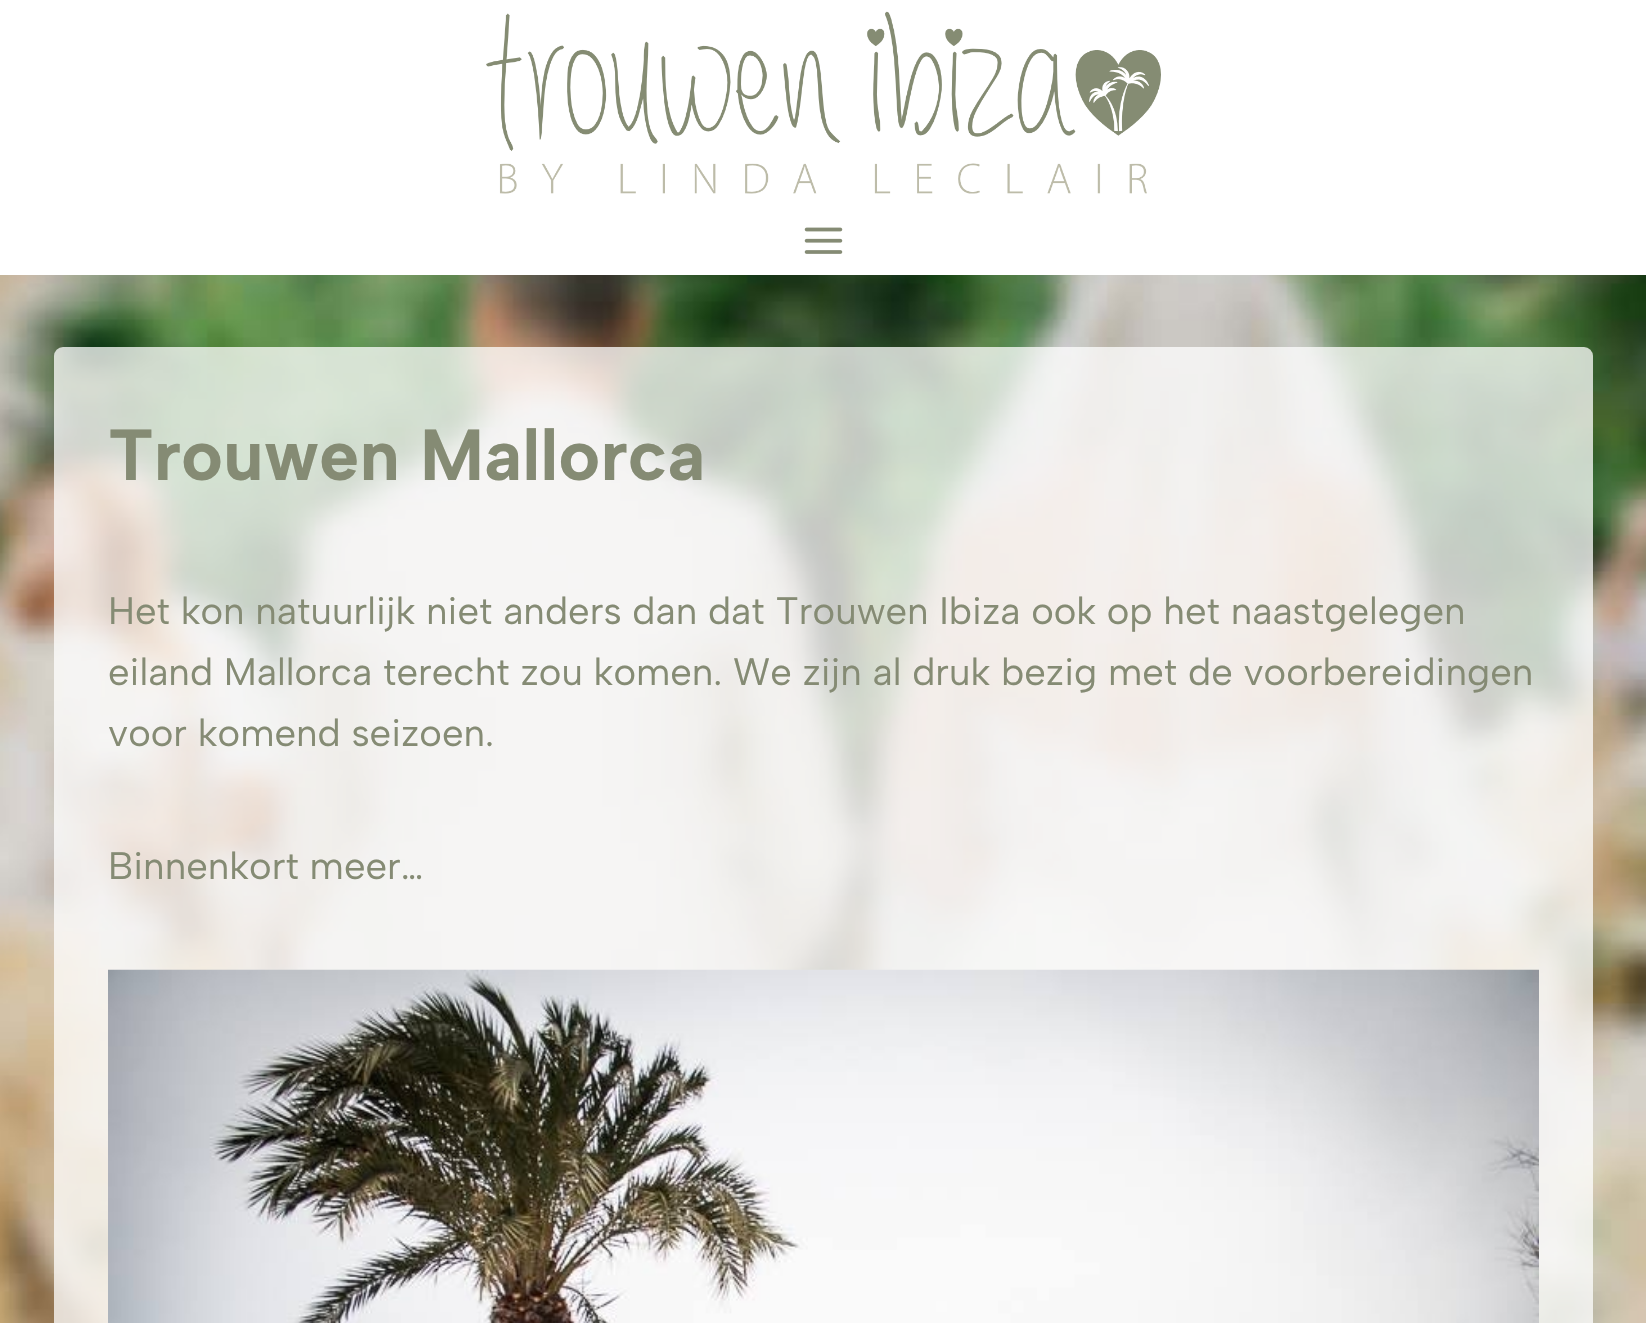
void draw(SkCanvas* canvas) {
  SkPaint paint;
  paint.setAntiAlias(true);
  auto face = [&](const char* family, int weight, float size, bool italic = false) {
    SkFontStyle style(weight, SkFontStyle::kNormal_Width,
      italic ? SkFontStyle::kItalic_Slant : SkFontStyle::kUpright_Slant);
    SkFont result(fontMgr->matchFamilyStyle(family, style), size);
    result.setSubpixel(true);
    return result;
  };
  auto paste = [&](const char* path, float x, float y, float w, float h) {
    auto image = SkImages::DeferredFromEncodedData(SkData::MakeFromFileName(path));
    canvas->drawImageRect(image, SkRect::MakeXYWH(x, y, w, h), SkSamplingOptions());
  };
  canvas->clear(0xffffffff);
  paste("img/1.png", 0, 275, 1646, 1048);
  paste("img/2.png", 486, 11, 675, 183);
  paste("img/3.png", 804, 227, 39, 27);
  paint.setColor(0xbfffffff);
  canvas->drawRoundRect(SkRect::MakeXYWH(54, 347, 1539, 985), 9, 9, paint);
  paste("img/4.png", 108, 969, 1431, 354);
  auto f0 = face("Albert Sans", 700, 72);
  paint.setColor(0xff858b74);
  canvas->drawString("Trouwen Mallorca", 108, 480, f0, paint);
  auto f1 = face("Albert Sans", 400, 38.25f);
  {
    const struct { const char* s; float x, y; } items[] = {
      {"Het kon natuurlijk niet anders dan dat Trouwen Ibiza ook op het naastgelegen", 108, 624},
      {"eiland Mallorca terecht zou komen. We zijn al druk bezig met de voorbereidingen", 108, 685},
      {"voor komend seizoen.", 108, 746},
      {"Binnenkort meer…", 108, 879},
    };
    for (auto [s, x, y] : items) {
      canvas->drawString(s, x, y, f1, paint);
    }
  }
}
